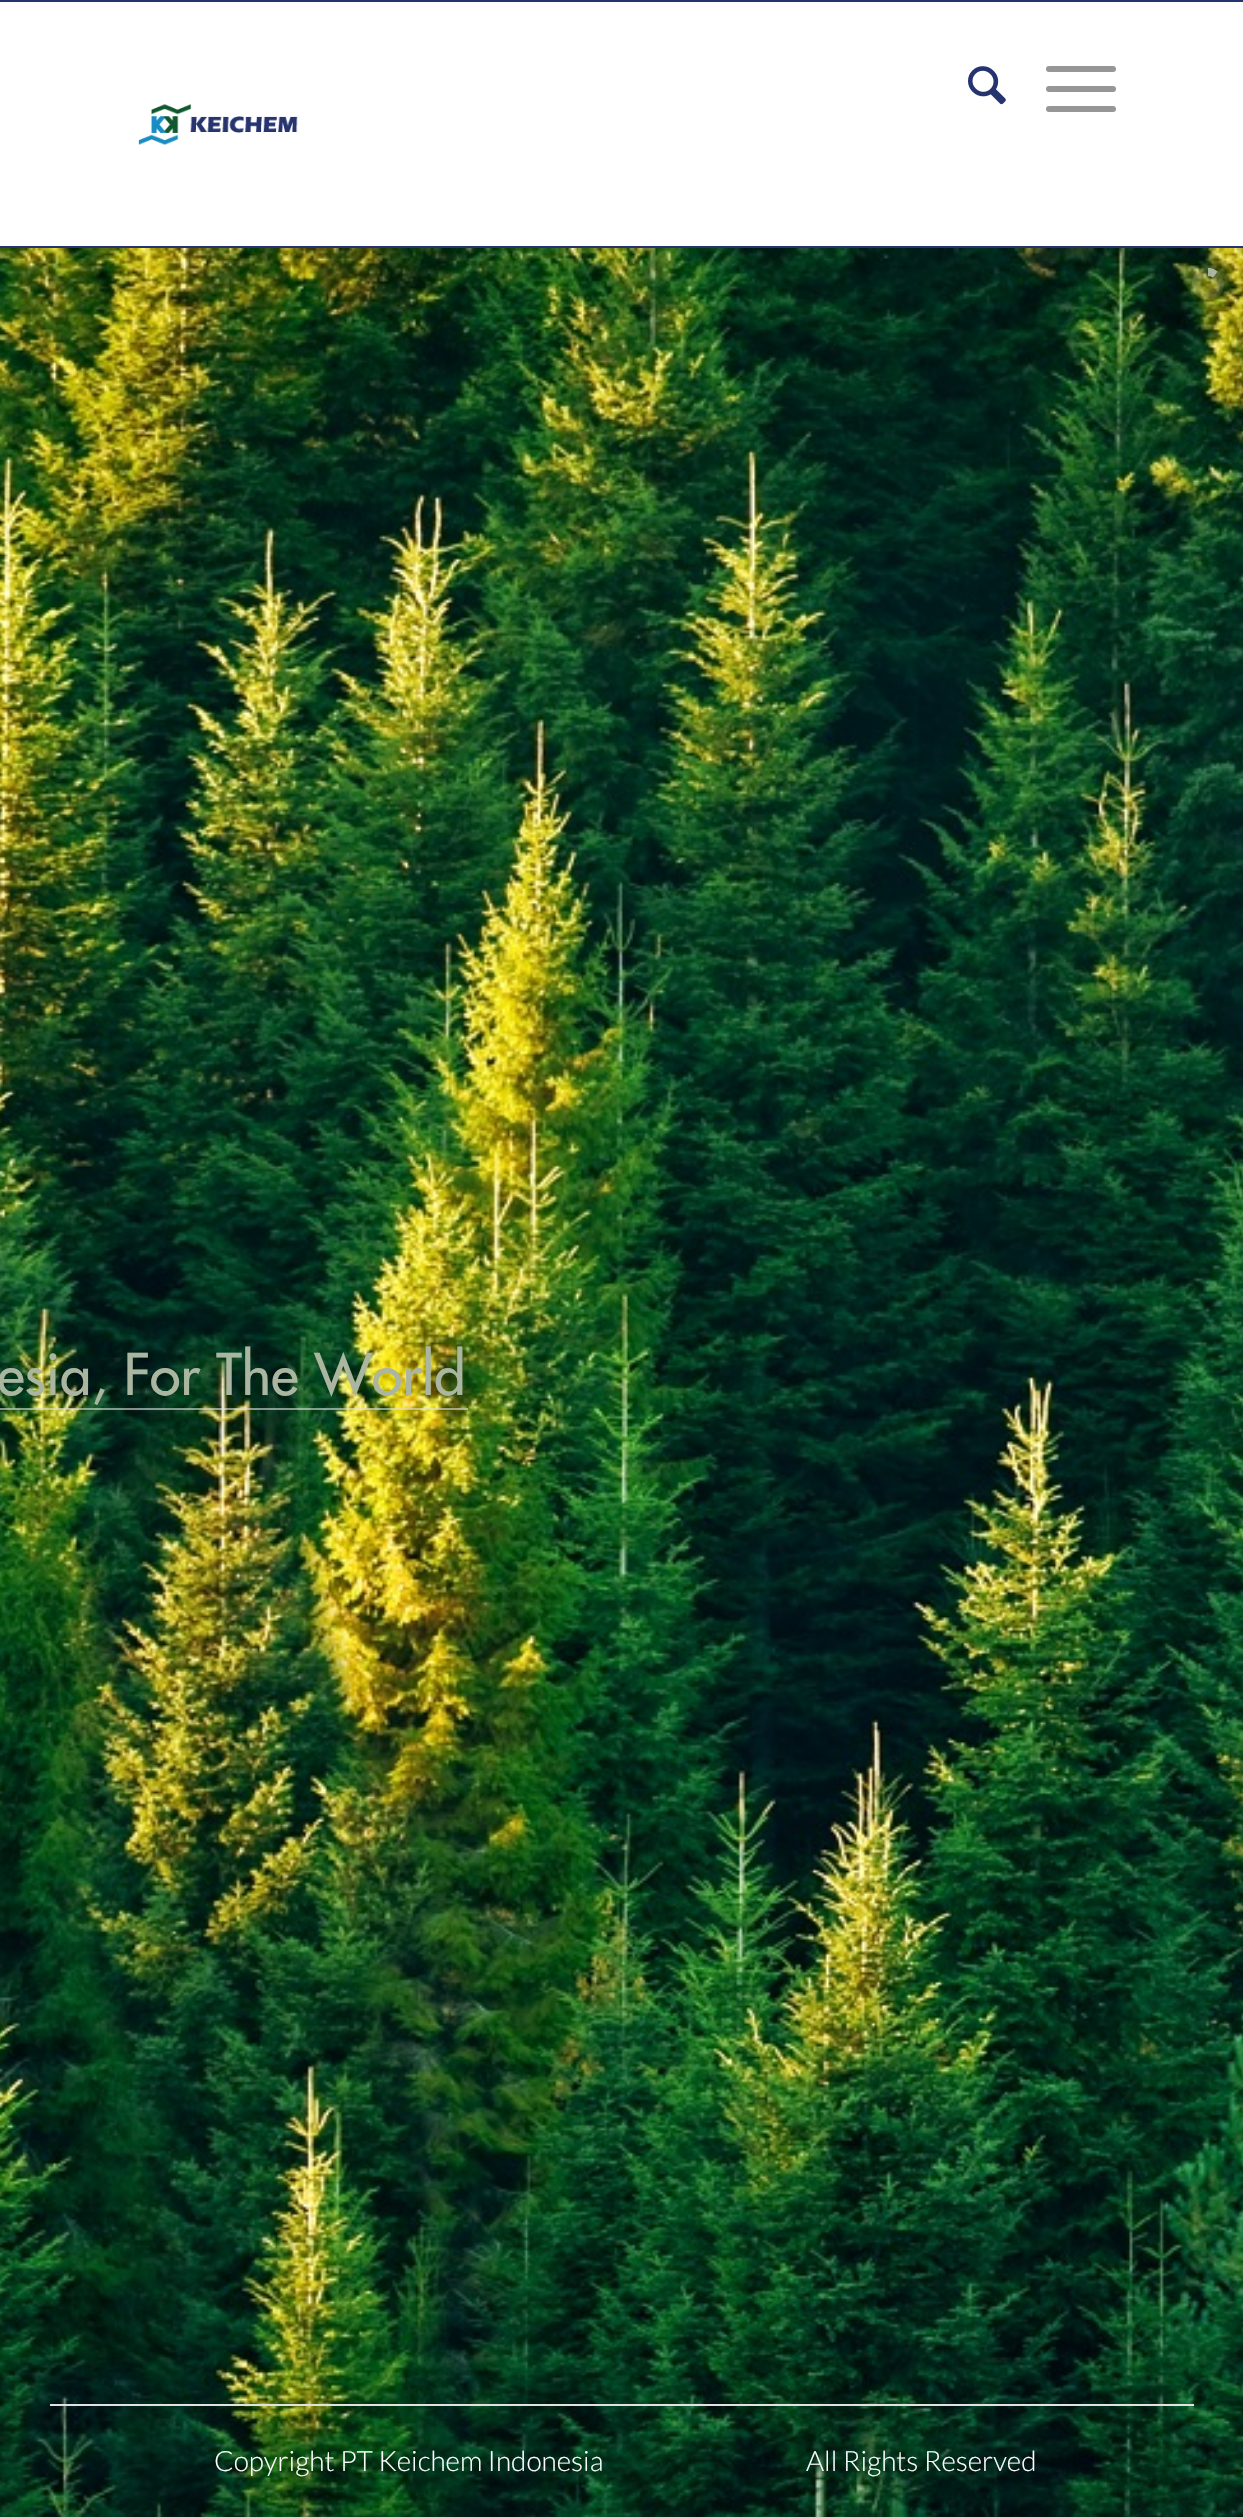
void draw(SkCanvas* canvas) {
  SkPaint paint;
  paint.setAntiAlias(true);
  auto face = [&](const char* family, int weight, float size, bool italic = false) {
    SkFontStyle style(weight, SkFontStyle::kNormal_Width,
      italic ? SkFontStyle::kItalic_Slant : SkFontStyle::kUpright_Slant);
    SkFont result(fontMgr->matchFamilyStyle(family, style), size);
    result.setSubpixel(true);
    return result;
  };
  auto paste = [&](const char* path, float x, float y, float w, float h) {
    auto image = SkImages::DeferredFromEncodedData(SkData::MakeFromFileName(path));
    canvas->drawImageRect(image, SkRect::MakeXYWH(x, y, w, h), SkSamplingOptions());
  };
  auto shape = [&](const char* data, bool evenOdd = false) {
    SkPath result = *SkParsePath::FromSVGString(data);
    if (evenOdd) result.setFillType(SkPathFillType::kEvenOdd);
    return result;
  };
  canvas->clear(0xffffffff);
  paint.setColor(0xff25336f);
  canvas->drawRect(SkRect::MakeXYWH(0, 0, 1243, 2), paint);
  canvas->drawRect(SkRect::MakeXYWH(0, 246, 1243, 2), paint);
  paste("img/1.png", 968, 66, 38, 39);
  paint.setColor(0xff969696);
  canvas->drawRoundRect(SkRect::MakeXYWH(1046, 86, 70, 6), 3, 3, paint);
  canvas->drawRoundRect(SkRect::MakeXYWH(1046, 66, 70, 6), 3, 3, paint);
  canvas->drawRoundRect(SkRect::MakeXYWH(1046, 106, 70, 6), 3, 3, paint);
  paste("img/2.png", 138, 104, 160, 41);
  paste("img/3.png", 0, 248, 1243, 2269);
  paint.setStroke(true);
  paint.setStrokeWidth(8);
  paint.setColor(0x21e1e1e1);
  canvas->drawCircle(1208, 284, 12, paint);
  canvas->save();
  canvas->clipRect(SkRect::MakeXYWH(1208, 268, 16, 32));
  canvas->clipPath(shape("M1205 261.5L1217.5 271.5L1198.5 296.5L1185.5 287Z"), true);
  paint.setColor(0xa6e1e1e1);
  canvas->drawPath(shape("M1215.5 274.5C1228 284 1213.5 303 1200.5 293.5C1188 284 1202.5 265 1215.5 274.5Z"), paint);
  canvas->restore();
  paint.setStroke(false);
  paint.setColor(0x94e1e1e1);
  canvas->drawRect(SkRect::MakeXYWH(0, 1408, 468, 2), paint);
  paint.setColor(0xffe1e1e1);
  canvas->drawRect(SkRect::MakeXYWH(50, 2404, 1144, 2), paint);
  auto f0 = face("Futura", 500, 56);
  paint.setColor(0xffabb6a0);
  canvas->drawString("esia, For The World", -3, 1395, f0, paint);
  auto f1 = face("Lato", 300, 28);
  paint.setColor(0xffffffff);
  canvas->drawString("Copyright PT Keichem Indonesia", 214, 2471, f1, paint);
  canvas->drawString("All Rights Reserved", 806, 2471, f1, paint);
}
